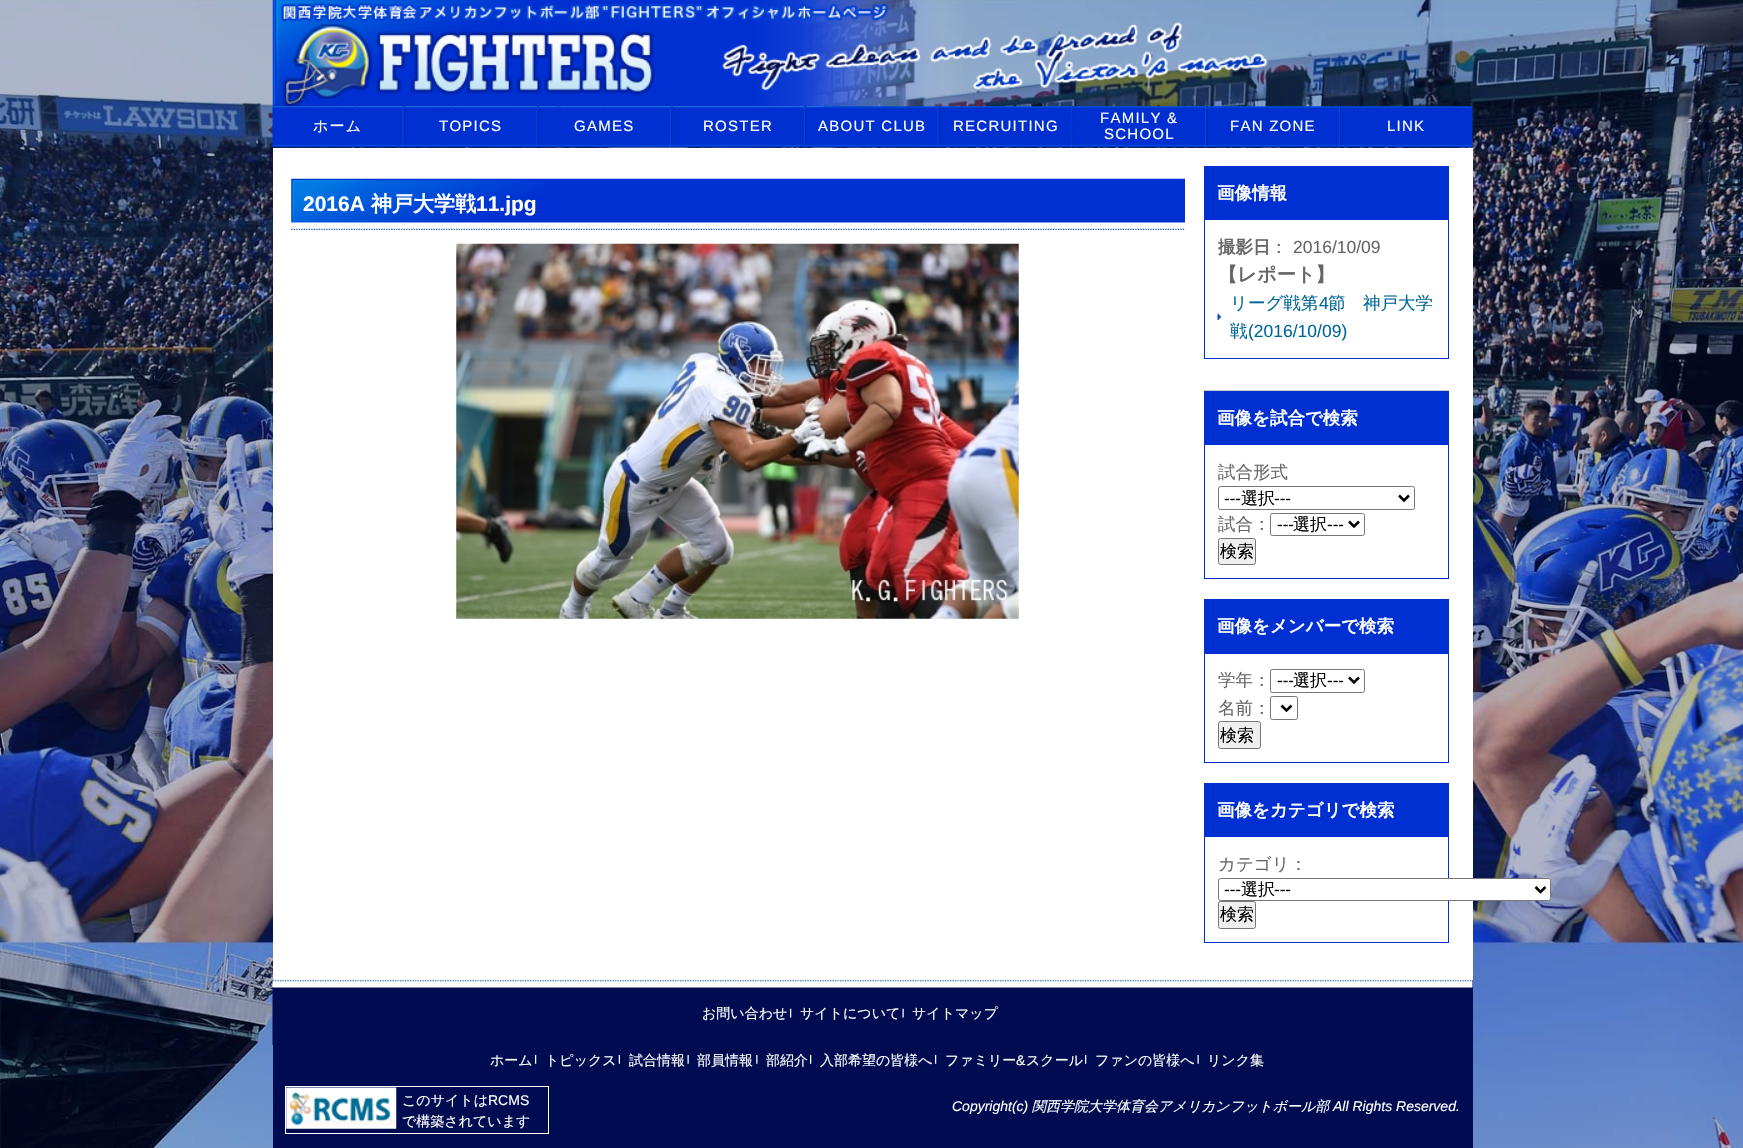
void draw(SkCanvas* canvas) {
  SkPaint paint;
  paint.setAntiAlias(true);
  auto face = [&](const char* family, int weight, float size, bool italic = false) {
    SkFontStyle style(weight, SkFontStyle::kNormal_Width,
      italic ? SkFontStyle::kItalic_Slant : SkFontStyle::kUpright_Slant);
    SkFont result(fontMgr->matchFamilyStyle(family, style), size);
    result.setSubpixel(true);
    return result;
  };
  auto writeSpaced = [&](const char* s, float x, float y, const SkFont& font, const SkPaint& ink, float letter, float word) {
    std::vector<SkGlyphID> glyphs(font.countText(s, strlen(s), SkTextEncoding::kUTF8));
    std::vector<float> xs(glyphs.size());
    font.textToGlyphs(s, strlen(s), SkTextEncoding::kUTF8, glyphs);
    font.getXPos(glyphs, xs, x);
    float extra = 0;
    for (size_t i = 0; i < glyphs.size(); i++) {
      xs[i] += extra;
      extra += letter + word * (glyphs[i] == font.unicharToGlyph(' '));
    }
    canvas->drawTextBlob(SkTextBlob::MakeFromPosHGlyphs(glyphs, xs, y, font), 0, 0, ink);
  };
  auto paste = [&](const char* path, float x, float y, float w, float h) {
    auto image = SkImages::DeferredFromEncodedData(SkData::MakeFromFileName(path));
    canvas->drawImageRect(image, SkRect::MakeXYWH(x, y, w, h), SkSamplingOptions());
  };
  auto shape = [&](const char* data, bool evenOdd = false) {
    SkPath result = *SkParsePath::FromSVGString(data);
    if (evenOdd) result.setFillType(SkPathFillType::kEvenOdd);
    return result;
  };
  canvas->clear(0xffffffff);
  paste("img/1.png", 0, 0, 1743, 1148);
  paste("img/2.png", 272, 0, 996, 107);
  paste("img/3.png", 272, 106, 1201, 42);
  paint.setStroke(true);
  paint.setStrokeWidth(1.2f);
  paint.setColor(0xff0859e9);
  paint.setPathEffect(SkDashPathEffect::Make({{1.25f, 1.25f}}, 0));
  canvas->drawPath(shape("M403 106V147.5"), paint);
  paint.setPathEffect(nullptr);
  paint.setPathEffect(SkDashPathEffect::Make({{1.25f, 1.25f}}, 0));
  canvas->drawPath(shape("M537 106V147.5"), paint);
  paint.setPathEffect(nullptr);
  paint.setColor(0xff002192);
  paint.setPathEffect(SkDashPathEffect::Make({{1.25f, 1.25f}}, 0));
  canvas->drawPath(shape("M404.5 106V147.5"), paint);
  paint.setPathEffect(nullptr);
  paint.setColor(0xff0859e9);
  paint.setPathEffect(SkDashPathEffect::Make({{1.25f, 1.25f}}, 0));
  canvas->drawPath(shape("M670.5 106V147.5"), paint);
  paint.setPathEffect(nullptr);
  paint.setColor(0xff002192);
  paint.setPathEffect(SkDashPathEffect::Make({{1.25f, 1.25f}}, 0));
  canvas->drawPath(shape("M538 106V147.5"), paint);
  paint.setPathEffect(nullptr);
  paint.setColor(0xff0859e9);
  paint.setPathEffect(SkDashPathEffect::Make({{1.25f, 1.25f}}, 0));
  canvas->drawPath(shape("M804.5 106V147.5"), paint);
  paint.setPathEffect(nullptr);
  paint.setColor(0xff002192);
  paint.setPathEffect(SkDashPathEffect::Make({{1.25f, 1.25f}}, 0));
  canvas->drawPath(shape("M672 106V147.5"), paint);
  paint.setPathEffect(nullptr);
  paint.setColor(0xff0859e9);
  paint.setPathEffect(SkDashPathEffect::Make({{1.25f, 1.25f}}, 0));
  canvas->drawPath(shape("M938 106V147.5"), paint);
  paint.setPathEffect(nullptr);
  paint.setColor(0xff002192);
  paint.setPathEffect(SkDashPathEffect::Make({{1.25f, 1.25f}}, 0));
  canvas->drawPath(shape("M805.5 106V147.5"), paint);
  paint.setPathEffect(nullptr);
  paint.setColor(0xff0859e9);
  paint.setPathEffect(SkDashPathEffect::Make({{1.25f, 1.25f}}, 0));
  canvas->drawPath(shape("M1072 106V147.5"), paint);
  paint.setPathEffect(nullptr);
  paint.setColor(0xff002192);
  paint.setPathEffect(SkDashPathEffect::Make({{1.25f, 1.25f}}, 0));
  canvas->drawPath(shape("M939.5 106V147.5"), paint);
  paint.setPathEffect(nullptr);
  paint.setColor(0xff0859e9);
  paint.setPathEffect(SkDashPathEffect::Make({{1.25f, 1.25f}}, 0));
  canvas->drawPath(shape("M1205.5 106V147.5"), paint);
  paint.setPathEffect(nullptr);
  paint.setColor(0xff002192);
  paint.setPathEffect(SkDashPathEffect::Make({{1.25f, 1.25f}}, 0));
  canvas->drawPath(shape("M1073 106V147.5"), paint);
  paint.setPathEffect(nullptr);
  paint.setColor(0xff0859e9);
  paint.setPathEffect(SkDashPathEffect::Make({{1.25f, 1.25f}}, 0));
  canvas->drawPath(shape("M1339.5 106V147.5"), paint);
  paint.setPathEffect(nullptr);
  paint.setColor(0xff002192);
  paint.setPathEffect(SkDashPathEffect::Make({{1.25f, 1.25f}}, 0));
  canvas->drawPath(shape("M1207 106V147.5"), paint);
  paint.setPathEffect(nullptr);
  paint.setPathEffect(SkDashPathEffect::Make({{1.25f, 1.25f}}, 0));
  canvas->drawPath(shape("M1340.5 106V147.5"), paint);
  paint.setPathEffect(nullptr);
  paint.setStroke(false);
  paint.setColor(0xffffffff);
  canvas->drawRect(SkRect::MakeXYWH(273, 148, 1200, 832), paint);
  paste("img/4.png", 291, 178, 894, 52);
  paste("img/5.png", 456, 243, 563, 376);
  paint.setColor(0xffcccccc);
  canvas->drawRect(SkRect::MakeXYWH(1204, 390, 245, 1), paint);
  paint.setColor(0xff0030d1);
  canvas->drawRect(SkRect::MakeXYWH(1204, 166, 245, 53), paint);
  paint.setStroke(true);
  paint.setStrokeWidth(1);
  canvas->drawRect(SkRect::MakeXYWH(1204.5f, 219.5f, 244, 139), paint);
  paste("img/6.png", 1217, 313, 5, 7);
  paint.setStroke(false);
  canvas->drawRect(SkRect::MakeXYWH(1204, 391, 245, 53), paint);
  paint.setStroke(true);
  canvas->drawRect(SkRect::MakeXYWH(1204.5f, 444.5f, 244, 134), paint);
  paint.setColor(0xff767676);
  canvas->drawRoundRect(SkRect::MakeXYWH(1218.5f, 486.5f, 196, 23), 2, 2, paint);
  paint.setStrokeWidth(2.5f);
  paint.setColor(0xff000000);
  canvas->drawPath(shape("M1399 495.5L1404 500.5L1409 495.5"), paint);
  paint.setStrokeWidth(1);
  paint.setColor(0xff767676);
  canvas->drawRoundRect(SkRect::MakeXYWH(1270.5f, 513.5f, 94, 22), 2, 2, paint);
  paint.setStrokeWidth(2.5f);
  paint.setColor(0xff000000);
  canvas->drawPath(shape("M1349 521.5L1354 526.5L1359 521.5"), paint);
  paint.setStroke(false);
  paint.setColor(0xffefefef);
  canvas->drawRoundRect(SkRect::MakeXYWH(1218.5f, 538.5f, 37, 26), 2, 2, paint);
  paint.setStroke(true);
  paint.setStrokeWidth(1);
  paint.setColor(0xff767676);
  canvas->drawRoundRect(SkRect::MakeXYWH(1218.5f, 538.5f, 37, 26), 2, 2, paint);
  paint.setStroke(false);
  paint.setColor(0xff0030d1);
  canvas->drawRect(SkRect::MakeXYWH(1204, 599, 245, 54), paint);
  paint.setStroke(true);
  canvas->drawRect(SkRect::MakeXYWH(1204.5f, 653.5f, 244, 109), paint);
  paint.setColor(0xff767676);
  canvas->drawRoundRect(SkRect::MakeXYWH(1270.5f, 669.5f, 94, 23), 2, 2, paint);
  paint.setStrokeWidth(2.5f);
  paint.setColor(0xff000000);
  canvas->drawPath(shape("M1349 677.5L1354 682.5L1359 677.5"), paint);
  paint.setStrokeWidth(1);
  paint.setColor(0xff767676);
  canvas->drawRoundRect(SkRect::MakeXYWH(1270.5f, 696.5f, 27, 23), 2, 2, paint);
  paint.setStrokeWidth(2.5f);
  paint.setColor(0xff000000);
  canvas->drawPath(shape("M1281.5 705.5L1286.5 710.5L1291.5 705.5"), paint);
  paint.setStroke(false);
  paint.setColor(0xffefefef);
  canvas->drawRoundRect(SkRect::MakeXYWH(1218.5f, 721.5f, 42, 27), 2, 2, paint);
  paint.setStroke(true);
  paint.setStrokeWidth(1);
  paint.setColor(0xff767676);
  canvas->drawRoundRect(SkRect::MakeXYWH(1218.5f, 721.5f, 42, 27), 2, 2, paint);
  paint.setStroke(false);
  paint.setColor(0xff0030d1);
  canvas->drawRect(SkRect::MakeXYWH(1204, 783, 245, 53), paint);
  paint.setStroke(true);
  canvas->drawRect(SkRect::MakeXYWH(1204.5f, 836.5f, 244, 106), paint);
  paint.setStroke(false);
  paint.setColor(0xffffffff);
  canvas->drawRoundRect(SkRect::MakeXYWH(1218.5f, 878.5f, 332, 22), 2, 2, paint);
  paint.setStroke(true);
  paint.setColor(0xff767676);
  canvas->drawRoundRect(SkRect::MakeXYWH(1218.5f, 878.5f, 332, 22), 2, 2, paint);
  paint.setStrokeWidth(2.5f);
  paint.setColor(0xff000000);
  canvas->drawPath(shape("M1535.5 887L1540.5 892L1545.5 887"), paint);
  paint.setStroke(false);
  paint.setColor(0xffefefef);
  canvas->drawRoundRect(SkRect::MakeXYWH(1218.5f, 901.5f, 37, 27), 2, 2, paint);
  paint.setStroke(true);
  paint.setStrokeWidth(1);
  paint.setColor(0xff767676);
  canvas->drawRoundRect(SkRect::MakeXYWH(1218.5f, 901.5f, 37, 27), 2, 2, paint);
  paint.setStroke(false);
  paint.setColor(0xff000c51);
  canvas->drawRect(SkRect::MakeXYWH(273, 980, 1200, 168), paint);
  paste("img/7.png", 272, 980, 1201, 65);
  paste("img/8.png", 790, 1008, 2, 10);
  paste("img/9.png", 902, 1008, 2, 10);
  paste("img/10.png", 535, 1055, 2, 9);
  paste("img/11.png", 618, 1055, 2, 9);
  paste("img/12.png", 687, 1055, 2, 9);
  paste("img/13.png", 756, 1055, 2, 9);
  paste("img/10.png", 810, 1055, 2, 9);
  paste("img/10.png", 935, 1055, 2, 9);
  paste("img/10.png", 1085, 1055, 2, 9);
  paste("img/12.png", 1197, 1055, 2, 9);
  paint.setStroke(true);
  paint.setColor(0xffffffff);
  canvas->drawRect(SkRect::MakeXYWH(285.5f, 1086.5f, 263, 47), paint);
  paste("img/14.png", 286, 1087, 111, 42);
  auto f0 = face("WenQuanYi Zen Hei", 500, 15);
  paint.setStroke(false);
  writeSpaced("ホーム", 313, 131, f0, paint, 1.25f, 0);
  auto f1 = face("Liberation Sans", 400, 15);
  {
    const struct { const char* s; float x, y; } items[] = {
      {"TOPICS", 439, 131},
      {"GAMES", 574, 131},
      {"ROSTER", 703, 131},
      {"ABOUT CLUB", 818, 131},
      {"RECRUITING", 953, 131},
      {"FAMILY &", 1100, 123},
      {"SCHOOL", 1104, 139},
      {"FAN ZONE", 1230, 131},
      {"LINK", 1387, 131},
    };
    for (auto [s, x, y] : items) {
      writeSpaced(s, x, y, f1, paint, 1.25f, 0);
    }
  }
  auto f2 = face("Liberation Sans", 700, 21);
  canvas->drawString("2016A", 303, 211, f2, paint);
  auto f3 = face("WenQuanYi Zen Hei", 700, 21);
  canvas->drawString("神戸大学戦", 371, 211, f3, paint);
  canvas->drawString("11.jpg", 476, 211, f2, paint);
  auto f4 = face("WenQuanYi Zen Hei", 700, 17.5f);
  canvas->drawString("画像情報", 1217, 199, f4, paint);
  paint.setColor(0xff666666);
  canvas->drawString("撮影日", 1218, 253, f4, paint);
  auto f5 = face("WenQuanYi Zen Hei", 500, 17.5f);
  canvas->drawString("：", 1270, 253, f5, paint);
  auto f6 = face("Liberation Sans", 400, 17.5f);
  canvas->drawString("2016/10/09", 1293, 253, f6, paint);
  auto f7 = face("WenQuanYi Zen Hei", 700, 19.25f);
  canvas->drawString("【レポート】", 1218, 281, f7, paint);
  paint.setColor(0xff006699);
  canvas->drawString("リーグ戦第", 1230, 309, f5, paint);
  canvas->drawString("4", 1319, 309, f6, paint);
  canvas->drawString("節　神戸大学", 1328, 309, f5, paint);
  canvas->drawString("戦", 1230, 337, f5, paint);
  canvas->drawString("(2016/10/09)", 1248, 337, f6, paint);
  paint.setColor(0xffffffff);
  canvas->drawString("画像を試合で検索", 1217, 424, f4, paint);
  paint.setColor(0xff666666);
  canvas->drawString("試合形式", 1218, 478, f5, paint);
  auto f8 = face("Liberation Sans", 400, 17);
  paint.setColor(0xff000000);
  canvas->drawString("---", 1224, 504, f8, paint);
  auto f9 = face("WenQuanYi Zen Hei", 500, 17);
  canvas->drawString("選択", 1241, 504, f9, paint);
  canvas->drawString("---", 1274, 504, f8, paint);
  paint.setColor(0xff666666);
  canvas->drawString("試合：", 1218, 530, f5, paint);
  paint.setColor(0xff000000);
  canvas->drawString("---", 1277, 530, f8, paint);
  canvas->drawString("選択", 1293, 530, f9, paint);
  canvas->drawString("---", 1327, 530, f8, paint);
  canvas->drawString("検索", 1220, 557, f9, paint);
  paint.setColor(0xffffffff);
  canvas->drawString("画像をメンバーで検索", 1217, 632, f4, paint);
  paint.setColor(0xff666666);
  canvas->drawString("学年：", 1218, 686, f5, paint);
  paint.setColor(0xff000000);
  canvas->drawString("---", 1277, 686, f8, paint);
  canvas->drawString("選択", 1293, 686, f9, paint);
  canvas->drawString("---", 1327, 686, f8, paint);
  paint.setColor(0xff666666);
  canvas->drawString("名前：", 1218, 714, f5, paint);
  paint.setColor(0xff000000);
  canvas->drawString("検索", 1220, 741, f9, paint);
  paint.setColor(0xffffffff);
  canvas->drawString("画像をカテゴリで検索", 1217, 816, f4, paint);
  paint.setColor(0xff666666);
  canvas->drawString("カテゴリ：", 1218, 870, f5, paint);
  paint.setColor(0xff000000);
  canvas->drawString("---", 1224, 895, f8, paint);
  canvas->drawString("選択", 1241, 895, f9, paint);
  canvas->drawString("---", 1274, 895, f8, paint);
  canvas->drawString("検索", 1220, 920, f9, paint);
  auto f10 = face("WenQuanYi Zen Hei", 500, 14);
  paint.setColor(0xffffffff);
  {
    const struct { const char* s; float x, y; } items[] = {
      {"お問い合わせ", 702, 1018},
      {"サイトについて", 800, 1018},
      {"サイトマップ", 912, 1018},
      {"ホーム", 490, 1065},
      {"トピックス", 545, 1065},
      {"試合情報", 629, 1065},
      {"部員情報", 697, 1065},
      {"部紹介", 766, 1065},
      {"入部希望の皆様へ", 820, 1065},
      {"ファミリー", 945, 1065},
    };
    for (auto [s, x, y] : items) {
      canvas->drawString(s, x, y, f10, paint);
    }
  }
  auto f11 = face("Liberation Sans", 400, 14);
  canvas->drawString("&", 1016, 1065, f11, paint);
  {
    const struct { const char* s; float x, y; } items[] = {
      {"スクール", 1026, 1065},
      {"ファンの皆様へ", 1095, 1065},
      {"リンク集", 1207, 1065},
      {"このサイトは", 402, 1105},
    };
    for (auto [s, x, y] : items) {
      canvas->drawString(s, x, y, f10, paint);
    }
  }
  canvas->drawString("RCMS", 488, 1105, f11, paint);
  canvas->drawString("で構築されています", 402, 1126, f10, paint);
  auto f12 = face("Liberation Sans", 400, 14, true);
  canvas->drawString("Copyright(c)", 952, 1111, f12, paint);
  auto f13 = face("WenQuanYi Zen Hei", 500, 14, true);
  canvas->drawString("関西学院大学体育会アメリカンフットボール部", 1032, 1111, f13, paint);
  canvas->drawString("All Rights Reserved.", 1333, 1111, f12, paint);
}
